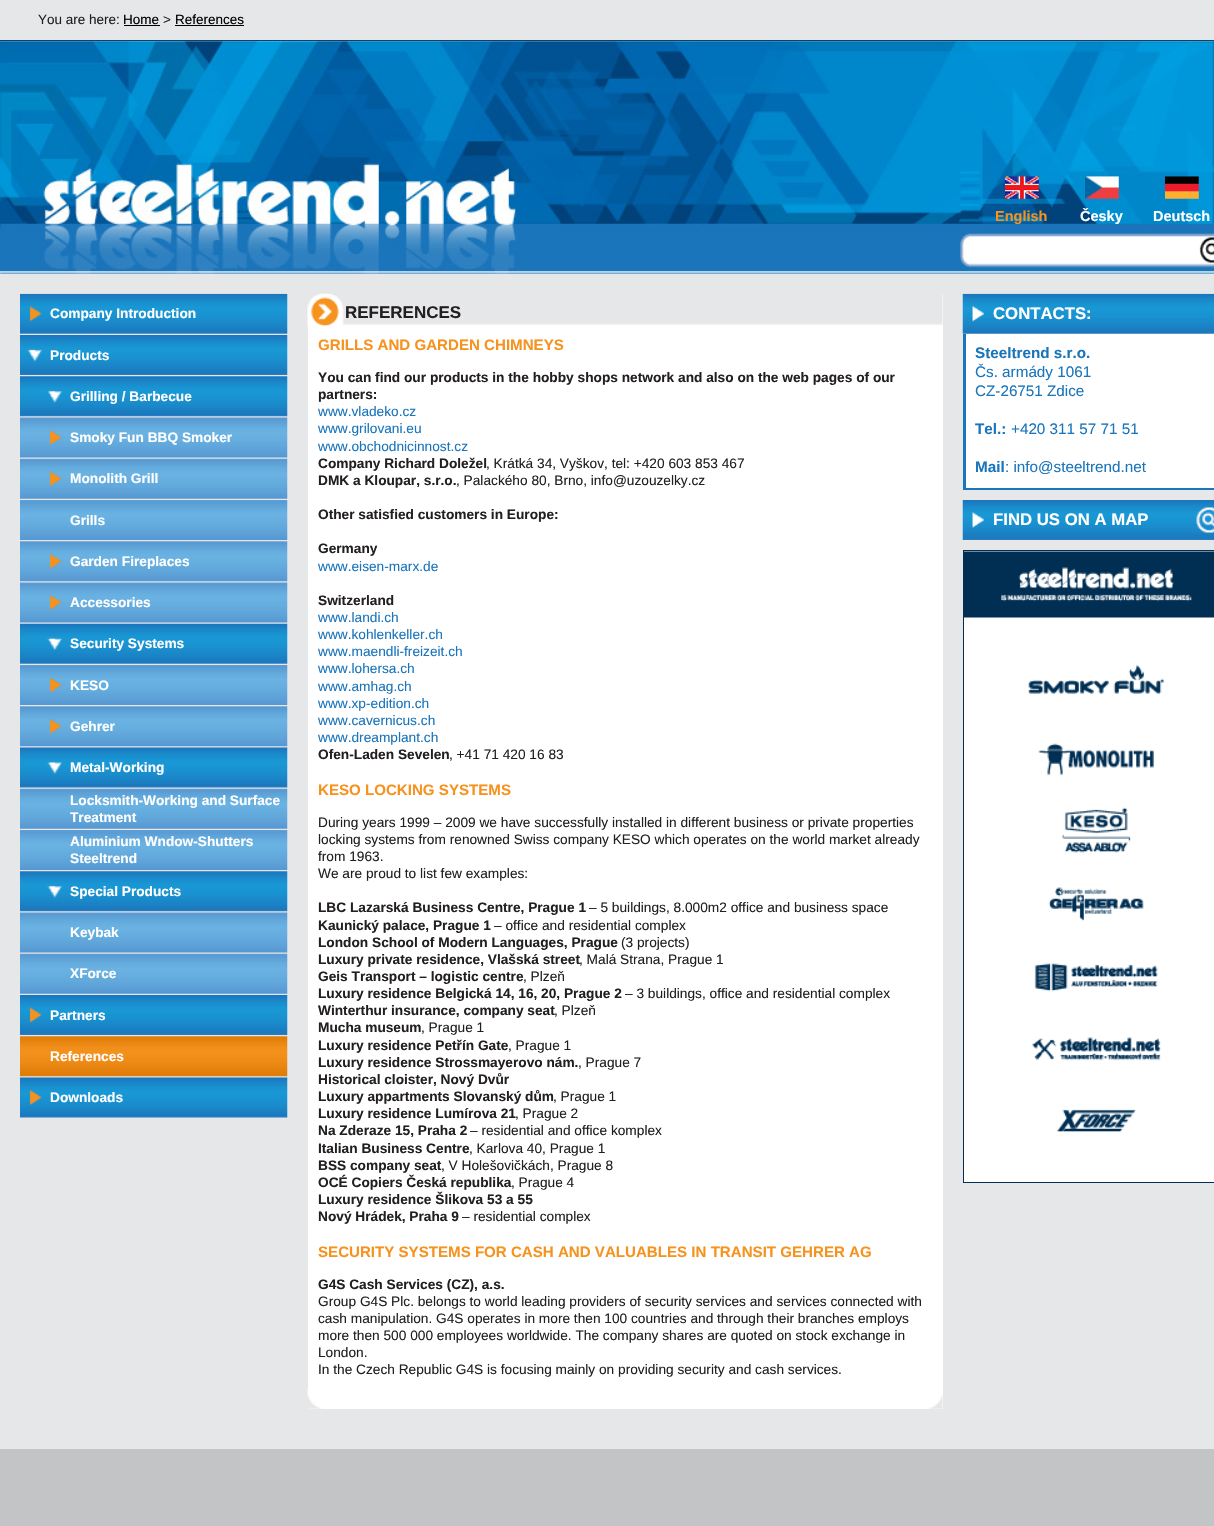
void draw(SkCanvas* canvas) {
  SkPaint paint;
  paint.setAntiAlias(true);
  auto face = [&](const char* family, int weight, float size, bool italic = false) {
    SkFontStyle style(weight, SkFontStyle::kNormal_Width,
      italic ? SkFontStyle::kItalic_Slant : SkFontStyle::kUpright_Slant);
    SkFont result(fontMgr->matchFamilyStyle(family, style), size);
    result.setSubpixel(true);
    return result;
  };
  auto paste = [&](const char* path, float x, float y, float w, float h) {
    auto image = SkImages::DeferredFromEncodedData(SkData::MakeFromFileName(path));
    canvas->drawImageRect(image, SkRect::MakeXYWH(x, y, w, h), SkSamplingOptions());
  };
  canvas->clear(0xffc3c4c5);
  {
    const struct { float x, y, w, h; SkColor color; } items[] = {
      {0, 0, 1214, 1449, 0xffe6e7e8},
      {0, 40, 1214, 1, 0xff054371},
      {124, 25, 36, 1, 0xff000000},
      {175, 25, 69, 1, 0xff000000},
    };
    for (auto [x, y, w, h, color] : items) {
      paint.setColor(color);
      canvas->drawRect(SkRect::MakeXYWH(x, y, w, h), paint);
    }
  }
  paste("img/1.png", 0, 41, 1214, 233);
  paste("img/2.png", 960, 233, 254, 35);
  paste("img/3.png", 1005, 176, 34, 23);
  paste("img/4.png", 1085, 176, 34, 23);
  paste("img/5.png", 1165, 176, 34, 23);
  paste("img/6.png", 1199, 237, 15, 26);
  paste("img/7.png", 20, 293, 268, 41);
  paste("img/8.png", 20, 335, 268, 40);
  paste("img/9.png", 20, 376, 268, 41);
  paste("img/10.png", 20, 417, 268, 41);
  paste("img/11.png", 20, 458, 268, 41);
  paste("img/12.png", 20, 500, 268, 40);
  paste("img/13.png", 20, 541, 268, 41);
  paste("img/14.png", 20, 582, 268, 41);
  paste("img/15.png", 20, 623, 268, 41);
  paste("img/16.png", 20, 665, 268, 40);
  paste("img/13.png", 20, 706, 268, 41);
  paste("img/17.png", 20, 747, 268, 41);
  paste("img/18.png", 20, 788, 268, 41);
  paste("img/12.png", 20, 830, 268, 40);
  paste("img/9.png", 20, 871, 268, 41);
  paste("img/19.png", 20, 912, 268, 41);
  paste("img/18.png", 20, 953, 268, 41);
  paste("img/20.png", 20, 995, 268, 40);
  paste("img/21.png", 20, 1036, 268, 41);
  paste("img/22.png", 20, 1077, 268, 41);
  paint.setColor(0xffffffff);
  canvas->drawRect(SkRect::MakeXYWH(942, 294, 1, 32), paint);
  paste("img/23.png", 307, 293, 636, 34);
  canvas->drawRect(SkRect::MakeXYWH(308, 326, 635, 1083), paint);
  paste("img/24.png", 307, 1389, 636, 20);
  paste("img/25.png", 962, 293, 252, 41);
  {
    const struct { float x, y, w, h; SkColor color; } items[] = {
      {966, 334, 248, 154, 0xffffffff},
      {963, 488, 251, 2, 0xff1a75bb},
      {963, 334, 3, 156, 0xff1a75bb},
    };
    for (auto [x, y, w, h, color] : items) {
      paint.setColor(color);
      canvas->drawRect(SkRect::MakeXYWH(x, y, w, h), paint);
    }
  }
  paste("img/26.png", 962, 500, 252, 40);
  paste("img/27.png", 1196, 507, 18, 26);
  paint.setColor(0xffffffff);
  canvas->drawRect(SkRect::MakeXYWH(963.5f, 550.5f, 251, 632), paint);
  paint.setStroke(true);
  paint.setStrokeWidth(1);
  paint.setColor(0xff002f53);
  canvas->drawRect(SkRect::MakeXYWH(963.5f, 550.5f, 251, 632), paint);
  paste("img/28.png", 964, 551, 250, 67);
  paste("img/29.png", 1028, 665, 136, 29);
  paste("img/30.png", 1038, 743, 116, 33);
  paste("img/31.png", 1062, 807, 69, 46);
  paste("img/32.png", 1048, 887, 96, 34);
  paste("img/33.png", 1034, 963, 124, 29);
  paste("img/34.png", 1032, 1037, 129, 24);
  paste("img/35.png", 1057, 1109, 79, 23);
  auto f0 = face("Liberation Sans", 400, 13.5f);
  paint.setStroke(false);
  paint.setColor(0xff231f20);
  canvas->drawString("You are here:", 38, 24, f0, paint);
  paint.setColor(0xff000000);
  canvas->drawString("Home", 123, 24, f0, paint);
  paint.setColor(0xff231f20);
  canvas->drawString(">", 163, 24, f0, paint);
  paint.setColor(0xff000000);
  canvas->drawString("References", 175, 24, f0, paint);
  auto f1 = face("Liberation Sans", 700, 14.5f);
  paint.setColor(0xfff6921e);
  canvas->drawString("English", 995, 221, f1, paint);
  paint.setColor(0xffffffff);
  canvas->drawString("Česky", 1080, 221, f1, paint);
  canvas->drawString("Deutsch", 1153, 221, f1, paint);
  auto f2 = face("Liberation Sans", 700, 13.7f);
  {
    const struct { const char* s; float x, y; } items[] = {
      {"Company Introduction", 50, 318},
      {"Products", 50, 360},
      {"Grilling / Barbecue", 70, 401},
      {"Smoky Fun BBQ Smoker", 70, 442},
      {"Monolith Grill", 70, 483},
      {"Grills", 70, 525},
      {"Garden Fireplaces", 70, 566},
      {"Accessories", 70, 607},
      {"Security Systems", 70, 648},
      {"KESO", 70, 690},
      {"Gehrer", 70, 731},
      {"Metal-Working", 70, 772},
      {"Locksmith-Working and Surface", 70, 805},
      {"Treatment", 70, 822},
      {"Aluminium Wndow-Shutters", 70, 846},
      {"Steeltrend", 70, 863},
      {"Special Products", 70, 896},
      {"Keybak", 70, 937},
      {"XForce", 70, 978},
      {"Partners", 50, 1020},
      {"References", 50, 1061},
      {"Downloads", 50, 1102},
    };
    for (auto [s, x, y] : items) {
      canvas->drawString(s, x, y, f2, paint);
    }
  }
  auto f3 = face("Liberation Sans", 700, 17);
  paint.setColor(0xff231f20);
  canvas->drawString("REFERENCES", 345, 318, f3, paint);
  auto f4 = face("Liberation Sans", 700, 15.1f);
  paint.setColor(0xfff6921e);
  canvas->drawString("GRILLS AND GARDEN CHIMNEYS", 318, 350, f4, paint);
  paint.setColor(0xff231f20);
  canvas->drawString("You can find our products in the hobby shops network and also on the web pages of our", 318, 382, f2, paint);
  canvas->drawString("partners:", 318, 399, f2, paint);
  auto f5 = face("Liberation Sans", 400, 13.7f);
  paint.setColor(0xff1a75bb);
  {
    const struct { const char* s; float x, y; } items[] = {
      {"www.vladeko.cz", 318, 416},
      {"www.grilovani.eu", 318, 433},
      {"www.obchodnicinnost.cz", 318, 451},
    };
    for (auto [s, x, y] : items) {
      canvas->drawString(s, x, y, f5, paint);
    }
  }
  paint.setColor(0xff231f20);
  canvas->drawString("Company Richard Doležel", 318, 468, f2, paint);
  canvas->drawString(", Krátká 34, Vyškov, tel: +420 603 853 467", 486, 468, f5, paint);
  canvas->drawString("DMK a Kloupar, s.r.o.", 318, 485, f2, paint);
  canvas->drawString(", Palackého 80, Brno, info@uzouzelky.cz", 456, 485, f5, paint);
  canvas->drawString("Other satisfied customers in Europe:", 318, 519, f2, paint);
  canvas->drawString("Germany", 318, 553, f2, paint);
  paint.setColor(0xff1a75bb);
  canvas->drawString("www.eisen-marx.de", 318, 571, f5, paint);
  paint.setColor(0xff231f20);
  canvas->drawString("Switzerland", 318, 605, f2, paint);
  paint.setColor(0xff1a75bb);
  {
    const struct { const char* s; float x, y; } items[] = {
      {"www.landi.ch", 318, 622},
      {"www.kohlenkeller.ch", 318, 639},
      {"www.maendli-freizeit.ch", 318, 656},
      {"www.lohersa.ch", 318, 673},
      {"www.amhag.ch", 318, 691},
      {"www.xp-edition.ch", 318, 708},
      {"www.cavernicus.ch", 318, 725},
      {"www.dreamplant.ch", 318, 742},
    };
    for (auto [s, x, y] : items) {
      canvas->drawString(s, x, y, f5, paint);
    }
  }
  paint.setColor(0xff231f20);
  canvas->drawString("Ofen-Laden Sevelen", 318, 759, f2, paint);
  canvas->drawString(", +41 71 420 16 83", 449, 759, f5, paint);
  paint.setColor(0xfff6921e);
  canvas->drawString("KESO LOCKING SYSTEMS", 318, 795, f4, paint);
  paint.setColor(0xff231f20);
  {
    const struct { const char* s; float x, y; } items[] = {
      {"During years 1999 – 2009 we have successfully installed in different business or private properties", 318, 827},
      {"locking systems from renowned Swiss company KESO which operates on the world market already", 318, 844},
      {"from 1963.", 318, 861},
      {"We are proud to list few examples:", 318, 878},
    };
    for (auto [s, x, y] : items) {
      canvas->drawString(s, x, y, f5, paint);
    }
  }
  canvas->drawString("LBC Lazarská Business Centre, Prague 1", 318, 912, f2, paint);
  canvas->drawString("– 5 buildings, 8.000m2 office and business space", 589, 912, f5, paint);
  canvas->drawString("Kaunický palace, Prague 1", 318, 930, f2, paint);
  canvas->drawString("– office and residential complex", 494, 930, f5, paint);
  canvas->drawString("London School of Modern Languages, Prague", 318, 947, f2, paint);
  canvas->drawString("(3 projects)", 621, 947, f5, paint);
  canvas->drawString("Luxury private residence, Vlašská street", 318, 964, f2, paint);
  canvas->drawString(", Malá Strana, Prague 1", 579, 964, f5, paint);
  canvas->drawString("Geis Transport – logistic centre", 318, 981, f2, paint);
  canvas->drawString(", Plzeň", 523, 981, f5, paint);
  canvas->drawString("Luxury residence Belgická 14, 16, 20, Prague 2", 318, 998, f2, paint);
  canvas->drawString("– 3 buildings, office and residential complex", 625, 998, f5, paint);
  canvas->drawString("Winterthur insurance, company seat", 318, 1015, f2, paint);
  canvas->drawString(", Plzeň", 554, 1015, f5, paint);
  canvas->drawString("Mucha museum", 318, 1032, f2, paint);
  canvas->drawString(", Prague 1", 421, 1032, f5, paint);
  canvas->drawString("Luxury residence Petřín Gate", 318, 1050, f2, paint);
  canvas->drawString(", Prague 1", 508, 1050, f5, paint);
  canvas->drawString("Luxury residence Strossmayerovo nám.", 318, 1067, f2, paint);
  canvas->drawString(", Prague 7", 578, 1067, f5, paint);
  canvas->drawString("Historical cloister, Nový Dvůr", 318, 1084, f2, paint);
  canvas->drawString("Luxury appartments Slovanský dům", 318, 1101, f2, paint);
  canvas->drawString(", Prague 1", 553, 1101, f5, paint);
  canvas->drawString("Luxury residence Lumírova 21", 318, 1118, f2, paint);
  canvas->drawString(", Prague 2", 515, 1118, f5, paint);
  canvas->drawString("Na Zderaze 15, Praha 2", 318, 1135, f2, paint);
  canvas->drawString("– residential and office komplex", 470, 1135, f5, paint);
  canvas->drawString("Italian Business Centre", 318, 1153, f2, paint);
  canvas->drawString(", Karlova 40, Prague 1", 469, 1153, f5, paint);
  canvas->drawString("BSS company seat", 318, 1170, f2, paint);
  canvas->drawString(", V Holešovičkách, Prague 8", 441, 1170, f5, paint);
  canvas->drawString("OCÉ Copiers Česká republika", 318, 1187, f2, paint);
  canvas->drawString(", Prague 4", 511, 1187, f5, paint);
  canvas->drawString("Luxury residence Šlikova 53 a 55", 318, 1204, f2, paint);
  canvas->drawString("Nový Hrádek, Praha 9", 318, 1221, f2, paint);
  canvas->drawString("– residential complex", 462, 1221, f5, paint);
  paint.setColor(0xfff6921e);
  canvas->drawString("SECURITY SYSTEMS FOR CASH AND VALUABLES IN TRANSIT GEHRER AG", 318, 1257, f4, paint);
  paint.setColor(0xff231f20);
  canvas->drawString("G4S Cash Services (CZ), a.s.", 318, 1289, f2, paint);
  {
    const struct { const char* s; float x, y; } items[] = {
      {"Group G4S Plc. belongs to world leading providers of security services and services connected with", 318, 1306},
      {"cash manipulation. G4S operates in more then 100 countries and through their branches employs", 318, 1323},
      {"more then 500 000 employees worldwide. The company shares are quoted on stock exchange in", 318, 1340},
      {"London.", 318, 1357},
      {"In the Czech Republic G4S is focusing mainly on providing security and cash services.", 318, 1374},
    };
    for (auto [s, x, y] : items) {
      canvas->drawString(s, x, y, f5, paint);
    }
  }
  auto f6 = face("Liberation Sans", 700, 16.75f);
  paint.setColor(0xffffffff);
  canvas->drawString("CONTACTS:", 993, 319, f6, paint);
  auto f7 = face("Liberation Sans", 700, 15.25f);
  paint.setColor(0xff1a75bb);
  canvas->drawString("Steeltrend s.r.o.", 975, 358, f7, paint);
  auto f8 = face("Liberation Sans", 400, 15.25f);
  canvas->drawString("Čs. armády 1061", 975, 377, f8, paint);
  canvas->drawString("CZ-26751 Zdice", 975, 396, f8, paint);
  canvas->drawString("Tel.:", 975, 434, f7, paint);
  canvas->drawString("+420 311 57 71 51", 1011, 434, f8, paint);
  canvas->drawString("Mail", 975, 472, f7, paint);
  canvas->drawString(": info@steeltrend.net", 1005, 472, f8, paint);
  paint.setColor(0xffffffff);
  canvas->drawString("FIND US ON A MAP", 993, 525, f6, paint);
}
